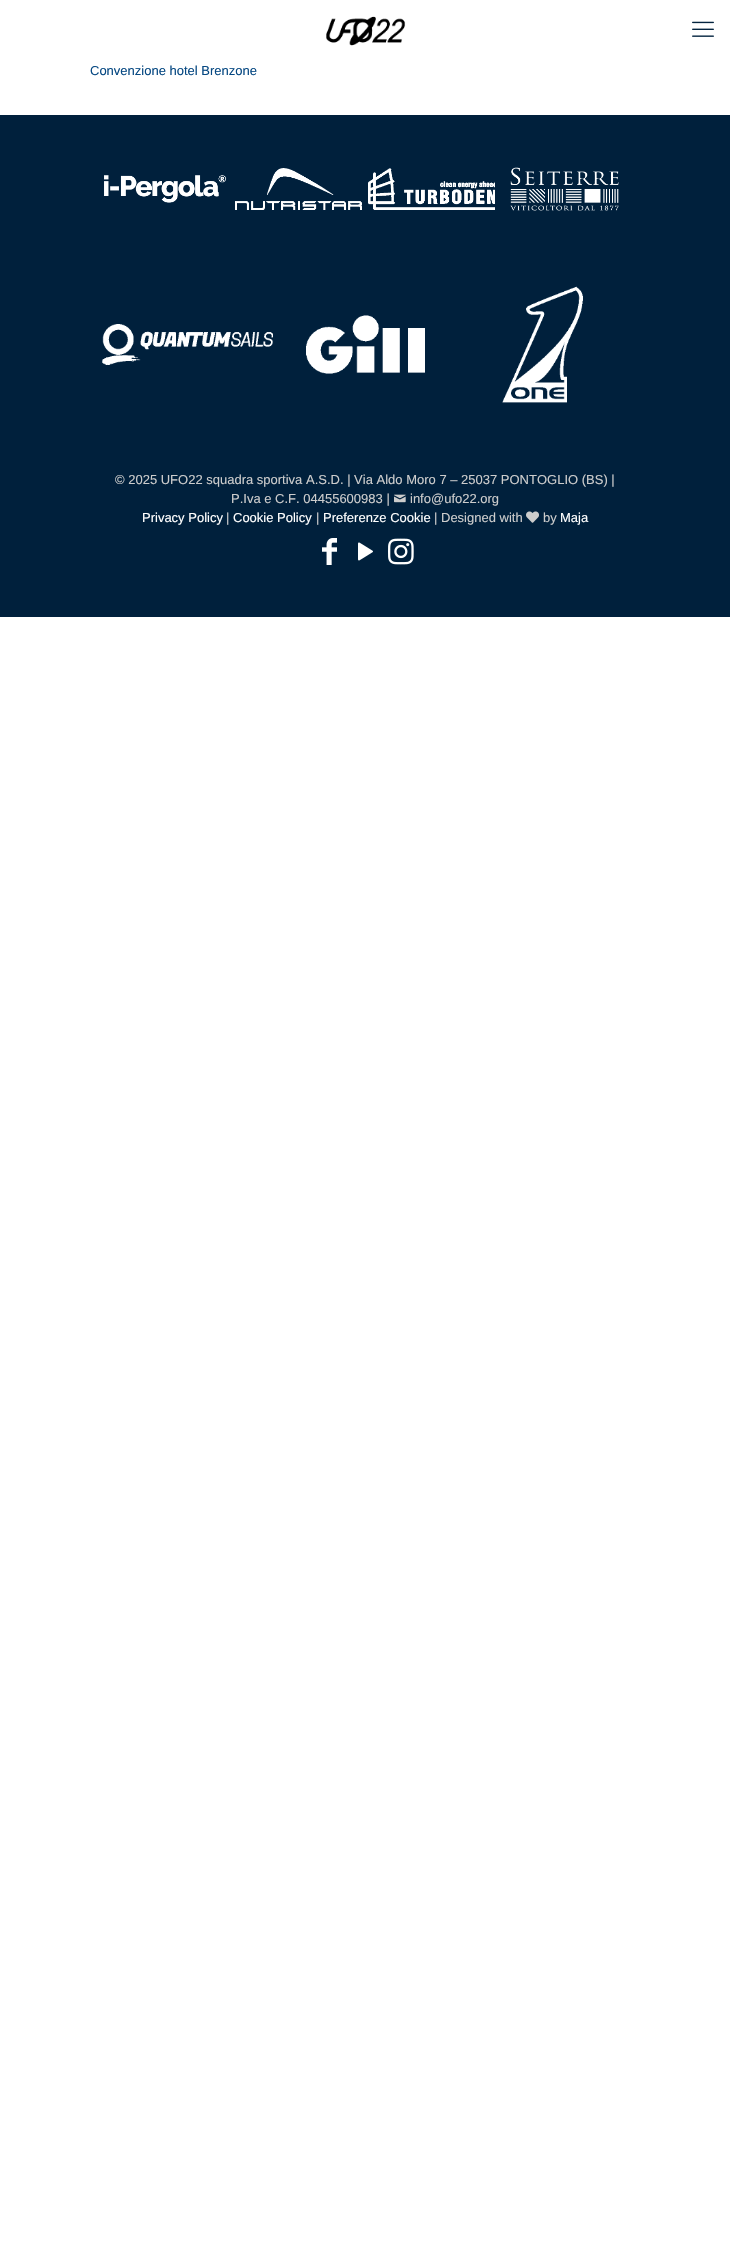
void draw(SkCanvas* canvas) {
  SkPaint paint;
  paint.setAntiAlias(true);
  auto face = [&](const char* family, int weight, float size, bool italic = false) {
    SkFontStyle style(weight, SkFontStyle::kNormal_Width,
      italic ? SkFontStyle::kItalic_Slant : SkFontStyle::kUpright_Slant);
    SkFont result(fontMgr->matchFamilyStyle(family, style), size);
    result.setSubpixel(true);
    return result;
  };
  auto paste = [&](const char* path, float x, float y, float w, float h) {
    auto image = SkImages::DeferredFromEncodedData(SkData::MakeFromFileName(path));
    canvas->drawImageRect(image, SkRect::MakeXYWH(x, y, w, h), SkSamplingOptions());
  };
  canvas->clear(0xffffffff);
  paste("img/1.png", 326, 16, 80, 30);
  paste("img/2.png", 692, 21, 22, 16);
  paint.setColor(0xff00203c);
  canvas->drawRect(SkRect::MakeXYWH(0, 115, 730, 502), paint);
  paste("img/3.png", 104, 175, 123, 28);
  paste("img/4.png", 235, 168, 127, 42);
  paste("img/5.png", 368, 168, 127, 42);
  paste("img/6.png", 510, 167, 109, 44);
  paste("img/7.png", 102, 324, 171, 41);
  paste("img/8.png", 306, 315, 119, 59);
  paste("img/9.png", 502, 286, 81, 117);
  paste("img/10.png", 394, 494, 12, 9);
  paste("img/11.png", 526, 511, 13, 12);
  paste("img/12.png", 322, 538, 15, 27);
  paste("img/13.png", 358, 542, 15, 19);
  paste("img/14.png", 388, 538, 26, 27);
  auto f0 = face("Liberation Sans", 400, 13);
  paint.setColor(0xff064882);
  canvas->drawString("Convenzione hotel Brenzone", 90, 75, f0, paint);
  paint.setColor(0xffcccccc);
  {
    const struct { const char* s; float x, y; } items[] = {
      {"© 2025 UFO22 squadra sportiva A.S.D. | Via Aldo Moro 7 – 25037 PONTOGLIO (BS) |", 115, 484},
      {"P.Iva e C.F. 04455600983 |", 231, 503},
      {"info@ufo22.org", 410, 503},
    };
    for (auto [s, x, y] : items) {
      canvas->drawString(s, x, y, f0, paint);
    }
  }
  paint.setColor(0xffffffff);
  canvas->drawString("Privacy Policy", 142, 522, f0, paint);
  paint.setColor(0xffcccccc);
  canvas->drawString("|", 226, 522, f0, paint);
  paint.setColor(0xffffffff);
  canvas->drawString("Cookie Policy", 233, 522, f0, paint);
  paint.setColor(0xffcccccc);
  canvas->drawString("|", 316, 522, f0, paint);
  paint.setColor(0xffffffff);
  canvas->drawString("Preferenze Cookie", 323, 522, f0, paint);
  paint.setColor(0xffcccccc);
  canvas->drawString("| Designed with", 434, 522, f0, paint);
  canvas->drawString("by", 543, 522, f0, paint);
  paint.setColor(0xffffffff);
  canvas->drawString("Maja", 560, 522, f0, paint);
}
